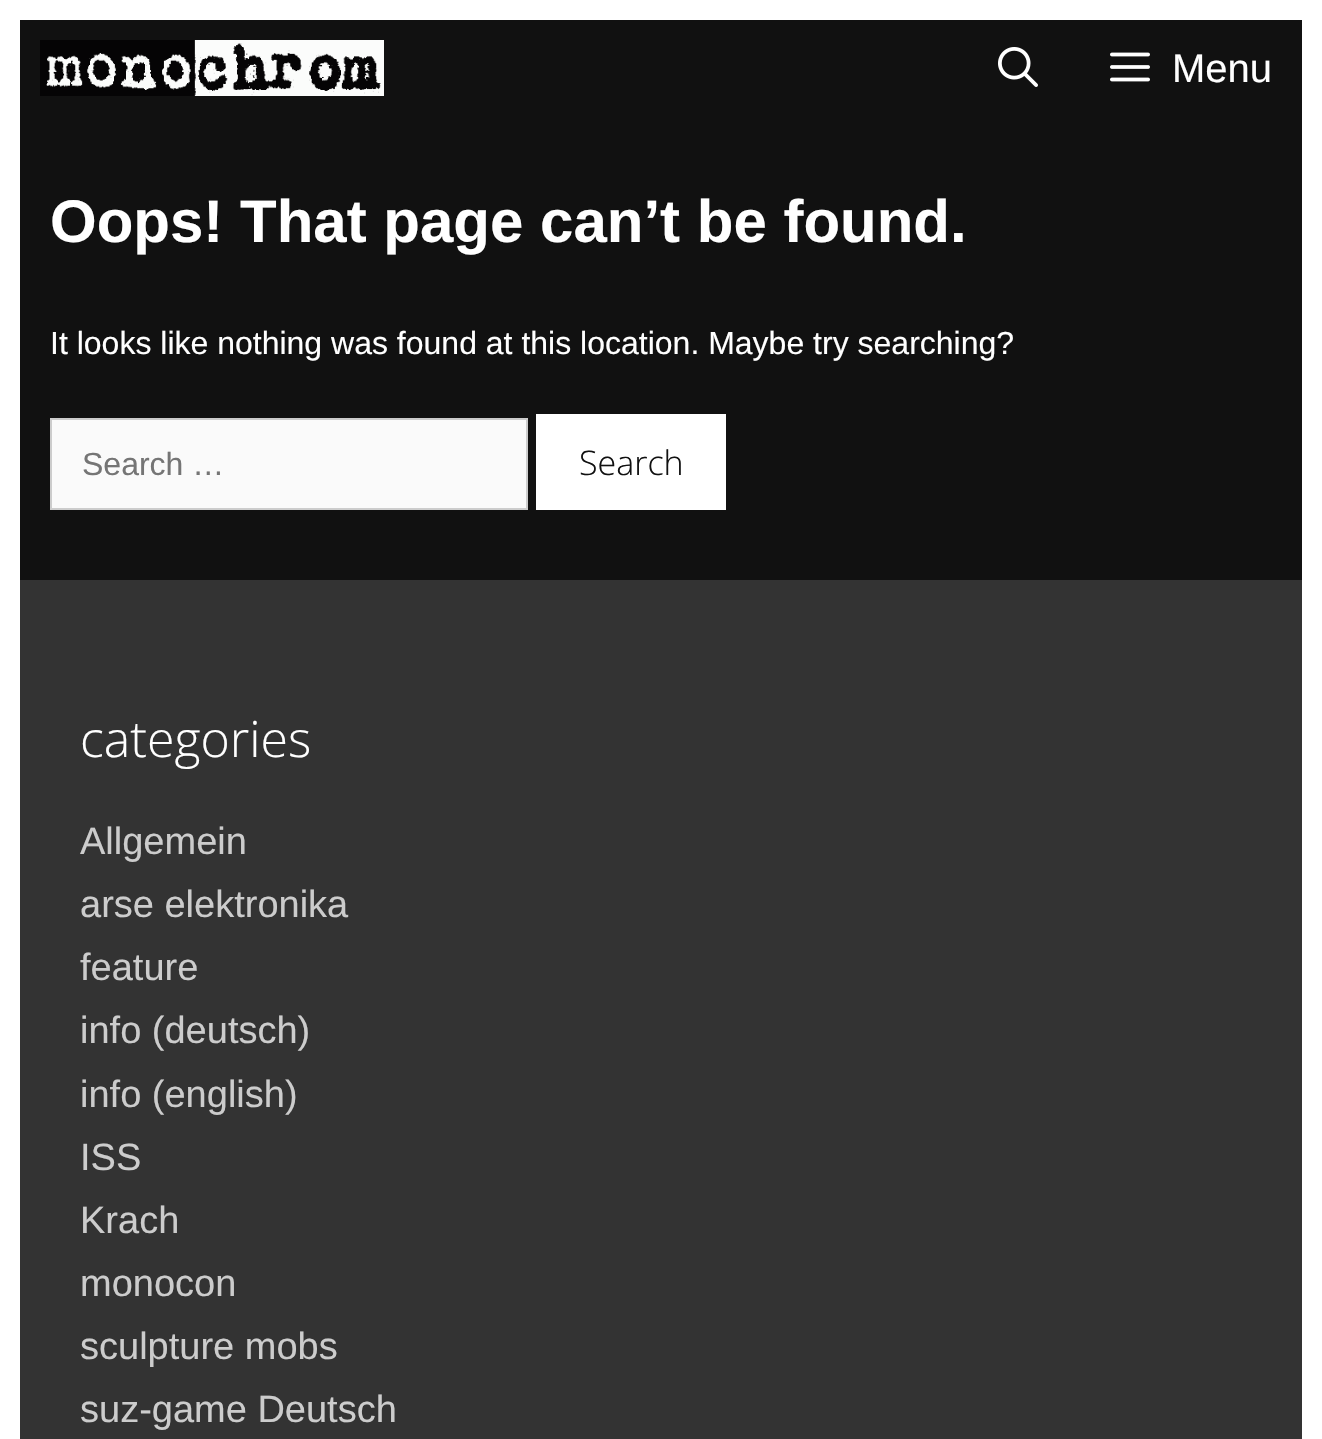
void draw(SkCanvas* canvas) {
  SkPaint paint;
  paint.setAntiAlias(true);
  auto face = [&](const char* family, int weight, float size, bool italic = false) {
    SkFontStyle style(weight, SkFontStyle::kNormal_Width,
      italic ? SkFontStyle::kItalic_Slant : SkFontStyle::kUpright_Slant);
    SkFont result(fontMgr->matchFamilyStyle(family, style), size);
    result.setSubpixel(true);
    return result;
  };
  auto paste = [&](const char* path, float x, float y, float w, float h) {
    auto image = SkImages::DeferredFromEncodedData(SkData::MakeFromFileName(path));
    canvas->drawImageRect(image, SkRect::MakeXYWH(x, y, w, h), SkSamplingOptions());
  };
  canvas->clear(0xffffffff);
  paint.setColor(0xff111111);
  canvas->drawRect(SkRect::MakeXYWH(20, 20, 1282, 560), paint);
  paste("img/1.png", 40, 40, 344, 56);
  paste("img/2.png", 998, 47, 40, 40);
  paste("img/3.png", 1110, 52, 40, 30);
  paint.setColor(0xfffafafa);
  canvas->drawRect(SkRect::MakeXYWH(51, 419, 476, 90), paint);
  paint.setStroke(true);
  paint.setStrokeWidth(2);
  paint.setColor(0xffcccccc);
  canvas->drawRect(SkRect::MakeXYWH(51, 419, 476, 90), paint);
  paint.setStroke(false);
  paint.setColor(0xffffffff);
  canvas->drawRect(SkRect::MakeXYWH(536, 414, 190, 96), paint);
  paint.setColor(0xff333333);
  canvas->drawRect(SkRect::MakeXYWH(20, 580, 1282, 859), paint);
  auto f0 = face("Liberation Sans", 400, 40);
  paint.setColor(0xffffffff);
  canvas->drawString("Menu", 1172, 82, f0, paint);
  auto f1 = face("Liberation Sans", 700, 60);
  canvas->drawString("Oops! That page can’t be found.", 50, 242, f1, paint);
  auto f2 = face("Liberation Sans", 400, 32);
  canvas->drawString("It looks like nothing was found at this location. Maybe try searching?", 50, 354, f2, paint);
  paint.setColor(0xff757575);
  canvas->drawString("Search …", 82, 475, f2, paint);
  auto f3 = face("Open Sans", 300, 34);
  paint.setColor(0xff111111);
  canvas->drawString("Search", 579, 475, f3, paint);
  auto f4 = face("Open Sans", 300, 50);
  paint.setColor(0xffffffff);
  canvas->drawString("categories", 80, 757, f4, paint);
  auto f5 = face("Liberation Sans", 400, 38);
  paint.setColor(0xffcccccc);
  {
    const struct { const char* s; float x, y; } items[] = {
      {"Allgemein", 80, 854},
      {"arse elektronika", 80, 917},
      {"feature", 80, 980},
      {"info (deutsch)", 80, 1043},
      {"info (english)", 80, 1107},
      {"ISS", 80, 1170},
      {"Krach", 80, 1233},
      {"monocon", 80, 1296},
      {"sculpture mobs", 80, 1359},
      {"suz-game Deutsch", 80, 1422},
    };
    for (auto [s, x, y] : items) {
      canvas->drawString(s, x, y, f5, paint);
    }
  }
}
